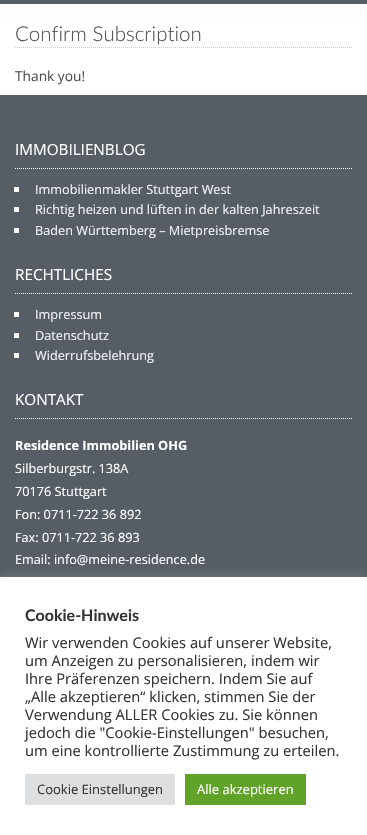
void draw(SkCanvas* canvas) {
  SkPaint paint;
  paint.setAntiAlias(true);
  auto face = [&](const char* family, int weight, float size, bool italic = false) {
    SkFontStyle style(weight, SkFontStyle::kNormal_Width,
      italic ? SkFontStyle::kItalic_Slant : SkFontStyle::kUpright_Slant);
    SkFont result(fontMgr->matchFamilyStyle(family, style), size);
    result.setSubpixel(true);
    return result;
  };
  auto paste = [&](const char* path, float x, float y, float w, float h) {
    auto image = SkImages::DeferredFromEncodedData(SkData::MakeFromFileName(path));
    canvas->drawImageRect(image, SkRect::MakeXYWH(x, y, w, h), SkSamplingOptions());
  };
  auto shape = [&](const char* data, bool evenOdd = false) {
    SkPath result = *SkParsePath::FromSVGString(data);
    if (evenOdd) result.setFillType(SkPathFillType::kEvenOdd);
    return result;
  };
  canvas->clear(0xffffffff);
  paste("img/1.png", 0, 4, 367, 91);
  paint.setColor(0xff575d65);
  canvas->drawRect(SkRect::MakeXYWH(0, 0, 367, 4), paint);
  paint.setColor(0xd9ffffff);
  canvas->drawRect(SkRect::MakeXYWH(0, 20, 367, 73), paint);
  paint.setStroke(true);
  paint.setStrokeWidth(1);
  paint.setColor(0xffcccccc);
  paint.setPathEffect(SkDashPathEffect::Make({{1, 1}}, 0));
  canvas->drawPath(shape("M15 47.5H352"), paint);
  paint.setPathEffect(nullptr);
  paint.setStroke(false);
  paint.setColor(0xff575d65);
  canvas->drawRect(SkRect::MakeXYWH(0, 95, 367, 482), paint);
  paint.setStroke(true);
  paint.setColor(0xffffffff);
  paint.setPathEffect(SkDashPathEffect::Make({{1, 1}}, 0));
  canvas->drawPath(shape("M15 168.5H352"), paint);
  paint.setPathEffect(nullptr);
  paint.setStroke(false);
  {
    const struct { float x, y, w, h; SkColor color; } items[] = {
      {14, 187, 5, 5, 0xffffffff},
      {14, 207, 5, 5, 0xffffffff},
      {14, 228, 5, 5, 0xffffffff},
    };
    for (auto [x, y, w, h, color] : items) {
      paint.setColor(color);
      canvas->drawRect(SkRect::MakeXYWH(x, y, w, h), paint);
    }
  }
  paint.setStroke(true);
  paint.setPathEffect(SkDashPathEffect::Make({{1, 1}}, 0));
  canvas->drawPath(shape("M15 293.5H352"), paint);
  paint.setPathEffect(nullptr);
  paint.setStroke(false);
  {
    const struct { float x, y, w, h; SkColor color; } items[] = {
      {14, 312, 5, 5, 0xffffffff},
      {14, 333, 5, 5, 0xffffffff},
      {14, 353, 5, 5, 0xffffffff},
    };
    for (auto [x, y, w, h, color] : items) {
      paint.setColor(color);
      canvas->drawRect(SkRect::MakeXYWH(x, y, w, h), paint);
    }
  }
  paint.setStroke(true);
  paint.setPathEffect(SkDashPathEffect::Make({{1, 1}}, 0));
  canvas->drawPath(shape("M15 418.5H352"), paint);
  paint.setPathEffect(nullptr);
  paint.setStroke(false);
  paint.setColor(0x4dacabab);
  paint.setMaskFilter(SkMaskFilter::MakeBlur(kNormal_SkBlurStyle, 5));
  canvas->drawRect(SkRect::MakeXYWH(0, 576, 367, 258), paint);
  paint.setMaskFilter(nullptr);
  {
    const struct { float x, y, w, h; SkColor color; } items[] = {
      {0, 577, 367, 258, 0xffffffff},
      {25, 774, 150, 31, 0xffdedfe0},
      {185, 774, 121, 31, 0xff61a229},
    };
    for (auto [x, y, w, h, color] : items) {
      paint.setColor(color);
      canvas->drawRect(SkRect::MakeXYWH(x, y, w, h), paint);
    }
  }
  auto f0 = face("Lato", 300, 20.5f);
  paint.setColor(0xff4f4f4f);
  canvas->drawString("Confirm Subscription", 15, 41, f0, paint);
  auto f1 = face("Open Sans", 400, 13.75f);
  canvas->drawString("Thank you!", 15, 81, f1, paint);
  auto f2 = face("Open Sans", 400, 15.25f);
  paint.setColor(0xffffffff);
  canvas->drawString("IMMOBILIENBLOG", 15, 155, f2, paint);
  auto f3 = face("Open Sans", 400, 12.7f);
  paint.setColor(0xfff0f1f6);
  {
    const struct { const char* s; float x, y; } items[] = {
      {"Immobilienmakler Stuttgart West", 35, 194},
      {"Richtig heizen und lüften in der kalten Jahreszeit", 35, 214},
      {"Baden Württemberg – Mietpreisbremse", 35, 235},
    };
    for (auto [s, x, y] : items) {
      canvas->drawString(s, x, y, f3, paint);
    }
  }
  paint.setColor(0xffffffff);
  canvas->drawString("RECHTLICHES", 15, 280, f2, paint);
  paint.setColor(0xfff0f1f6);
  {
    const struct { const char* s; float x, y; } items[] = {
      {"Impressum", 35, 319},
      {"Datenschutz", 35, 340},
      {"Widerrufsbelehrung", 35, 360},
    };
    for (auto [s, x, y] : items) {
      canvas->drawString(s, x, y, f3, paint);
    }
  }
  paint.setColor(0xffffffff);
  canvas->drawString("KONTAKT", 15, 405, f2, paint);
  auto f4 = face("Open Sans", 700, 12.7f);
  canvas->drawString("Residence Immobilien OHG", 15, 450, f4, paint);
  {
    const struct { const char* s; float x, y; } items[] = {
      {"Silberburgstr. 138A", 15, 473},
      {"70176 Stuttgart", 15, 496},
      {"Fon: 0711-722 36 892", 15, 519},
      {"Fax: 0711-722 36 893", 15, 542},
      {"Email: info@meine-residence.de", 15, 564},
    };
    for (auto [s, x, y] : items) {
      canvas->drawString(s, x, y, f3, paint);
    }
  }
  auto f5 = face("Lato", 700, 16);
  paint.setColor(0xff333333);
  canvas->drawString("Cookie-Hinweis", 25, 621, f5, paint);
  auto f6 = face("Open Sans", 400, 14.7f);
  {
    const struct { const char* s; float x, y; } items[] = {
      {"Wir verwenden Cookies auf unserer Website,", 25, 648},
      {"um Anzeigen zu personalisieren, indem wir", 25, 666},
      {"Ihre Präferenzen speichern. Indem Sie auf", 25, 684},
      {"„Alle akzeptieren“ klicken, stimmen Sie der", 25, 702},
      {"Verwendung ALLER Cookies zu. Sie können", 25, 720},
      {"jedoch die \"Cookie-Einstellungen\" besuchen,", 25, 738},
      {"um eine kontrollierte Zustimmung zu erteilen.", 25, 756},
    };
    for (auto [s, x, y] : items) {
      canvas->drawString(s, x, y, f6, paint);
    }
  }
  auto f7 = face("Open Sans", 400, 13);
  canvas->drawString("Cookie Einstellungen", 37, 794, f7, paint);
  paint.setColor(0xffffffff);
  canvas->drawString("Alle akzeptieren", 197, 794, f7, paint);
}
